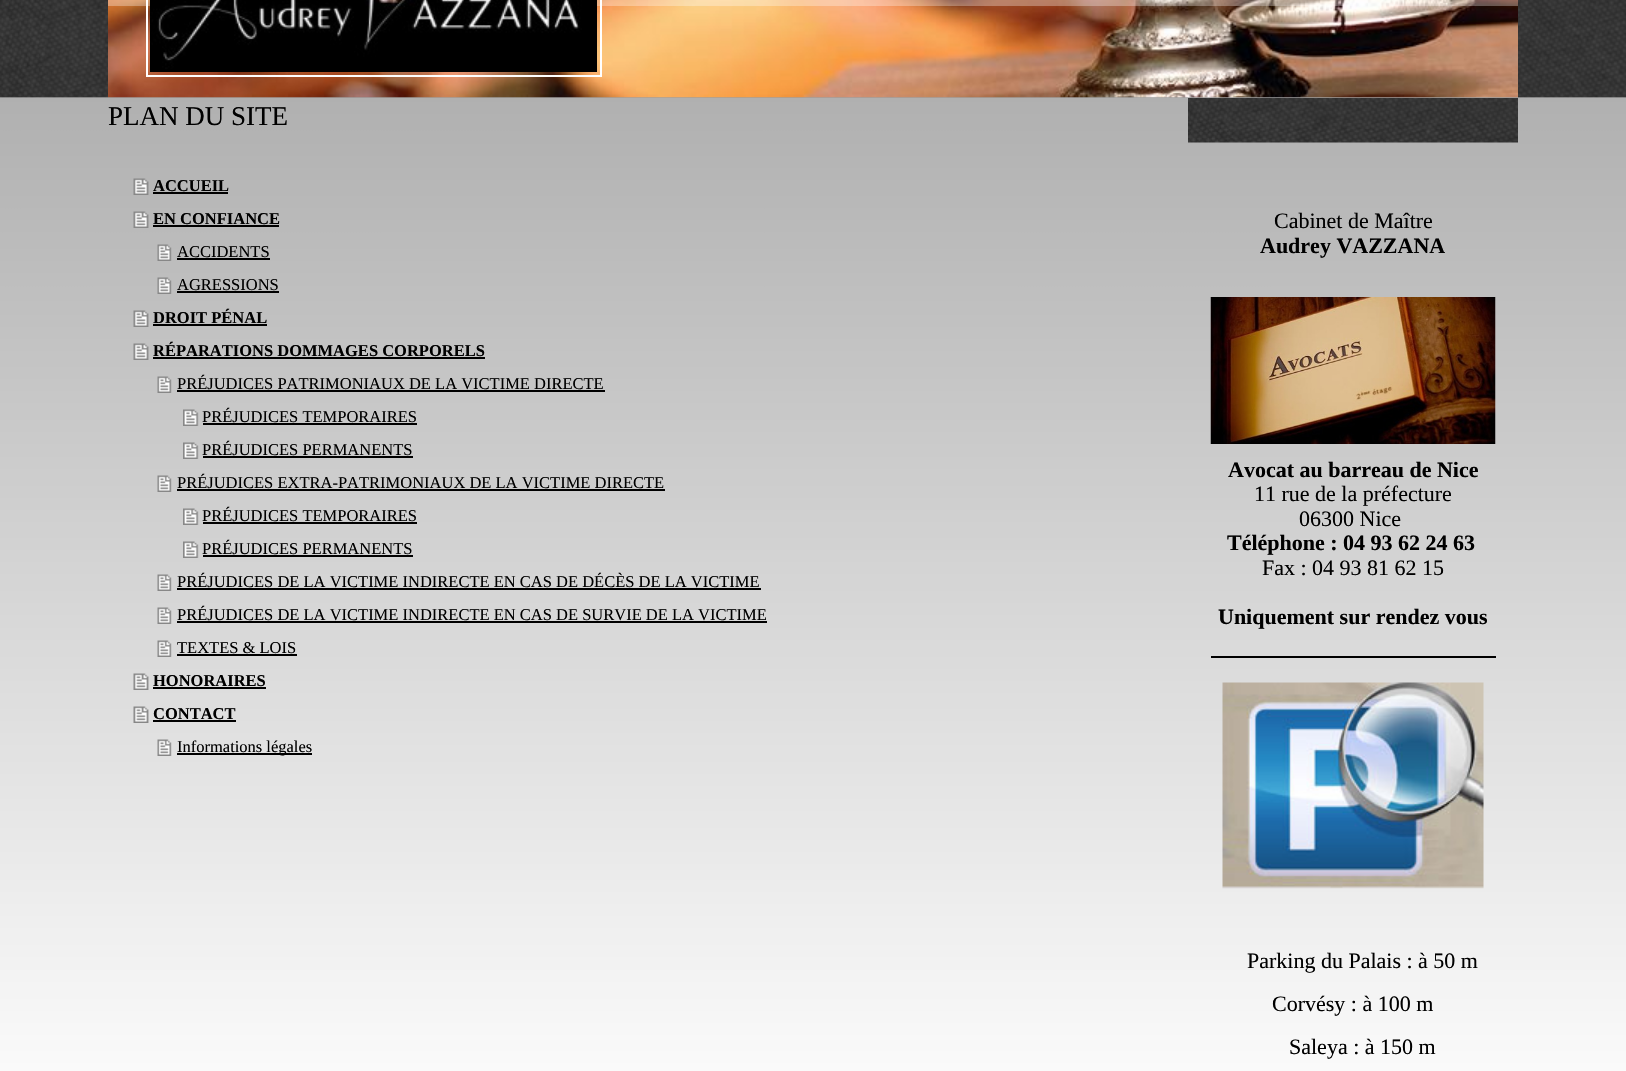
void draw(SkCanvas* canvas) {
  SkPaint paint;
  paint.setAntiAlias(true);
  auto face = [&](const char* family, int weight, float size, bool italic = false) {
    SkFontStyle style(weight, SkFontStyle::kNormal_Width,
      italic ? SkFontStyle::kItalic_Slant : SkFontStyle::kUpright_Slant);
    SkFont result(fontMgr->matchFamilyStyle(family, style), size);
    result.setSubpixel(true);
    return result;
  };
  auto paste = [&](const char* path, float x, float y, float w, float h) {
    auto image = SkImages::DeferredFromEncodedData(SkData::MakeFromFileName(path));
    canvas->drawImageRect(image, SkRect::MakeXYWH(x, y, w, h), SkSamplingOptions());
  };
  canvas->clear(0xffffffff);
  paste("img/4.png", 0, 97, 1626, 974);
  paste("img/1.png", 0, 0, 1626, 98);
  paint.setColor(0xffa0a0a0);
  canvas->drawRect(SkRect::MakeXYWH(108, 97, 1410, 1), paint);
  paste("img/3.png", 108, 0, 1410, 98);
  paint.setColor(0x4fffffff);
  canvas->drawRect(SkRect::MakeXYWH(108, 0, 1410, 6), paint);
  paint.setStroke(true);
  paint.setStrokeWidth(2);
  paint.setColor(0xffffffff);
  canvas->drawRect(SkRect::MakeXYWH(147, -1, 454, 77), paint);
  paste("img/2.png", 150, 0, 447, 72);
  paste("img/5.png", 133, 178, 16, 17);
  paint.setStroke(false);
  paint.setColor(0xff000000);
  canvas->drawRect(SkRect::MakeXYWH(153, 192, 75, 2), paint);
  paste("img/6.png", 133, 211, 16, 17);
  canvas->drawRect(SkRect::MakeXYWH(153, 225, 126, 2), paint);
  paste("img/7.png", 157, 244, 15, 17);
  canvas->drawRect(SkRect::MakeXYWH(177, 258, 93, 2), paint);
  paste("img/8.png", 157, 277, 15, 17);
  canvas->drawRect(SkRect::MakeXYWH(177, 291, 102, 2), paint);
  paste("img/9.png", 133, 310, 16, 17);
  canvas->drawRect(SkRect::MakeXYWH(153, 324, 114, 2), paint);
  paste("img/10.png", 133, 343, 16, 17);
  canvas->drawRect(SkRect::MakeXYWH(153, 357, 332, 2), paint);
  paste("img/11.png", 157, 376, 15, 17);
  canvas->drawRect(SkRect::MakeXYWH(177, 390, 428, 2), paint);
  paste("img/12.png", 183, 409, 16, 17);
  canvas->drawRect(SkRect::MakeXYWH(203, 423, 214, 2), paint);
  paste("img/13.png", 183, 442, 16, 17);
  canvas->drawRect(SkRect::MakeXYWH(203, 456, 210, 2), paint);
  paste("img/14.png", 157, 475, 15, 17);
  canvas->drawRect(SkRect::MakeXYWH(177, 489, 488, 2), paint);
  paste("img/15.png", 183, 508, 16, 17);
  canvas->drawRect(SkRect::MakeXYWH(203, 522, 214, 2), paint);
  paste("img/16.png", 183, 541, 16, 17);
  canvas->drawRect(SkRect::MakeXYWH(203, 555, 210, 2), paint);
  paste("img/17.png", 157, 574, 15, 17);
  canvas->drawRect(SkRect::MakeXYWH(177, 588, 584, 2), paint);
  paste("img/18.png", 157, 607, 15, 17);
  canvas->drawRect(SkRect::MakeXYWH(177, 621, 590, 2), paint);
  paste("img/19.png", 157, 640, 15, 17);
  canvas->drawRect(SkRect::MakeXYWH(177, 654, 120, 2), paint);
  paste("img/20.png", 133, 673, 16, 17);
  canvas->drawRect(SkRect::MakeXYWH(153, 687, 113, 2), paint);
  paste("img/21.png", 133, 706, 16, 17);
  canvas->drawRect(SkRect::MakeXYWH(153, 720, 83, 2), paint);
  paste("img/22.png", 157, 739, 15, 17);
  canvas->drawRect(SkRect::MakeXYWH(177, 753, 135, 2), paint);
  paste("img/23.png", 1188, 98, 330, 45);
  paste("img/24.png", 1210, 297, 286, 147);
  canvas->drawRect(SkRect::MakeXYWH(1211, 656, 285, 2), paint);
  paste("img/25.png", 1222, 682, 262, 207);
  auto f0 = face("Liberation Serif", 400, 27);
  canvas->drawString("PLAN DU SITE", 108, 125, f0, paint);
  auto f1 = face("Liberation Serif", 700, 16.5f);
  canvas->drawString("ACCUEIL", 153, 191, f1, paint);
  canvas->drawString("EN CONFIANCE", 153, 224, f1, paint);
  auto f2 = face("Liberation Serif", 400, 16.5f);
  canvas->drawString("ACCIDENTS", 177, 257, f2, paint);
  canvas->drawString("AGRESSIONS", 177, 290, f2, paint);
  canvas->drawString("DROIT PÉNAL", 153, 323, f1, paint);
  canvas->drawString("RÉPARATIONS DOMMAGES CORPORELS", 153, 356, f1, paint);
  {
    const struct { const char* s; float x, y; } items[] = {
      {"PRÉJUDICES PATRIMONIAUX DE LA VICTIME DIRECTE", 177, 389},
      {"PRÉJUDICES TEMPORAIRES", 202, 422},
      {"PRÉJUDICES PERMANENTS", 202, 455},
      {"PRÉJUDICES EXTRA-PATRIMONIAUX DE LA VICTIME DIRECTE", 177, 488},
      {"PRÉJUDICES TEMPORAIRES", 202, 521},
      {"PRÉJUDICES PERMANENTS", 202, 554},
      {"PRÉJUDICES DE LA VICTIME INDIRECTE EN CAS DE DÉCÈS DE LA VICTIME", 177, 587},
      {"PRÉJUDICES DE LA VICTIME INDIRECTE EN CAS DE SURVIE DE LA VICTIME", 177, 620},
      {"TEXTES & LOIS", 177, 653},
    };
    for (auto [s, x, y] : items) {
      canvas->drawString(s, x, y, f2, paint);
    }
  }
  canvas->drawString("HONORAIRES", 153, 686, f1, paint);
  canvas->drawString("CONTACT", 153, 719, f1, paint);
  canvas->drawString("Informations légales", 177, 752, f2, paint);
  auto f3 = face("Liberation Serif", 400, 22);
  canvas->drawString("Cabinet de Maître", 1274, 228, f3, paint);
  auto f4 = face("Liberation Serif", 700, 22);
  canvas->drawString("Audrey VAZZANA", 1260, 253, f4, paint);
  canvas->drawString("Avocat au barreau de Nice", 1228, 477, f4, paint);
  canvas->drawString("11 rue de la préfecture", 1254, 501, f3, paint);
  canvas->drawString("06300 Nice", 1299, 526, f3, paint);
  canvas->drawString("Téléphone : 04 93 62 24 63", 1227, 550, f4, paint);
  canvas->drawString("Fax : 04 93 81 62 15", 1262, 575, f3, paint);
  canvas->drawString("Uniquement sur rendez vous", 1218, 624, f4, paint);
  {
    const struct { const char* s; float x, y; } items[] = {
      {"Parking du Palais : à 50 m", 1247, 968},
      {"Corvésy : à 100 m", 1272, 1011},
      {"Saleya : à 150 m", 1289, 1054},
    };
    for (auto [s, x, y] : items) {
      canvas->drawString(s, x, y, f3, paint);
    }
  }
}
